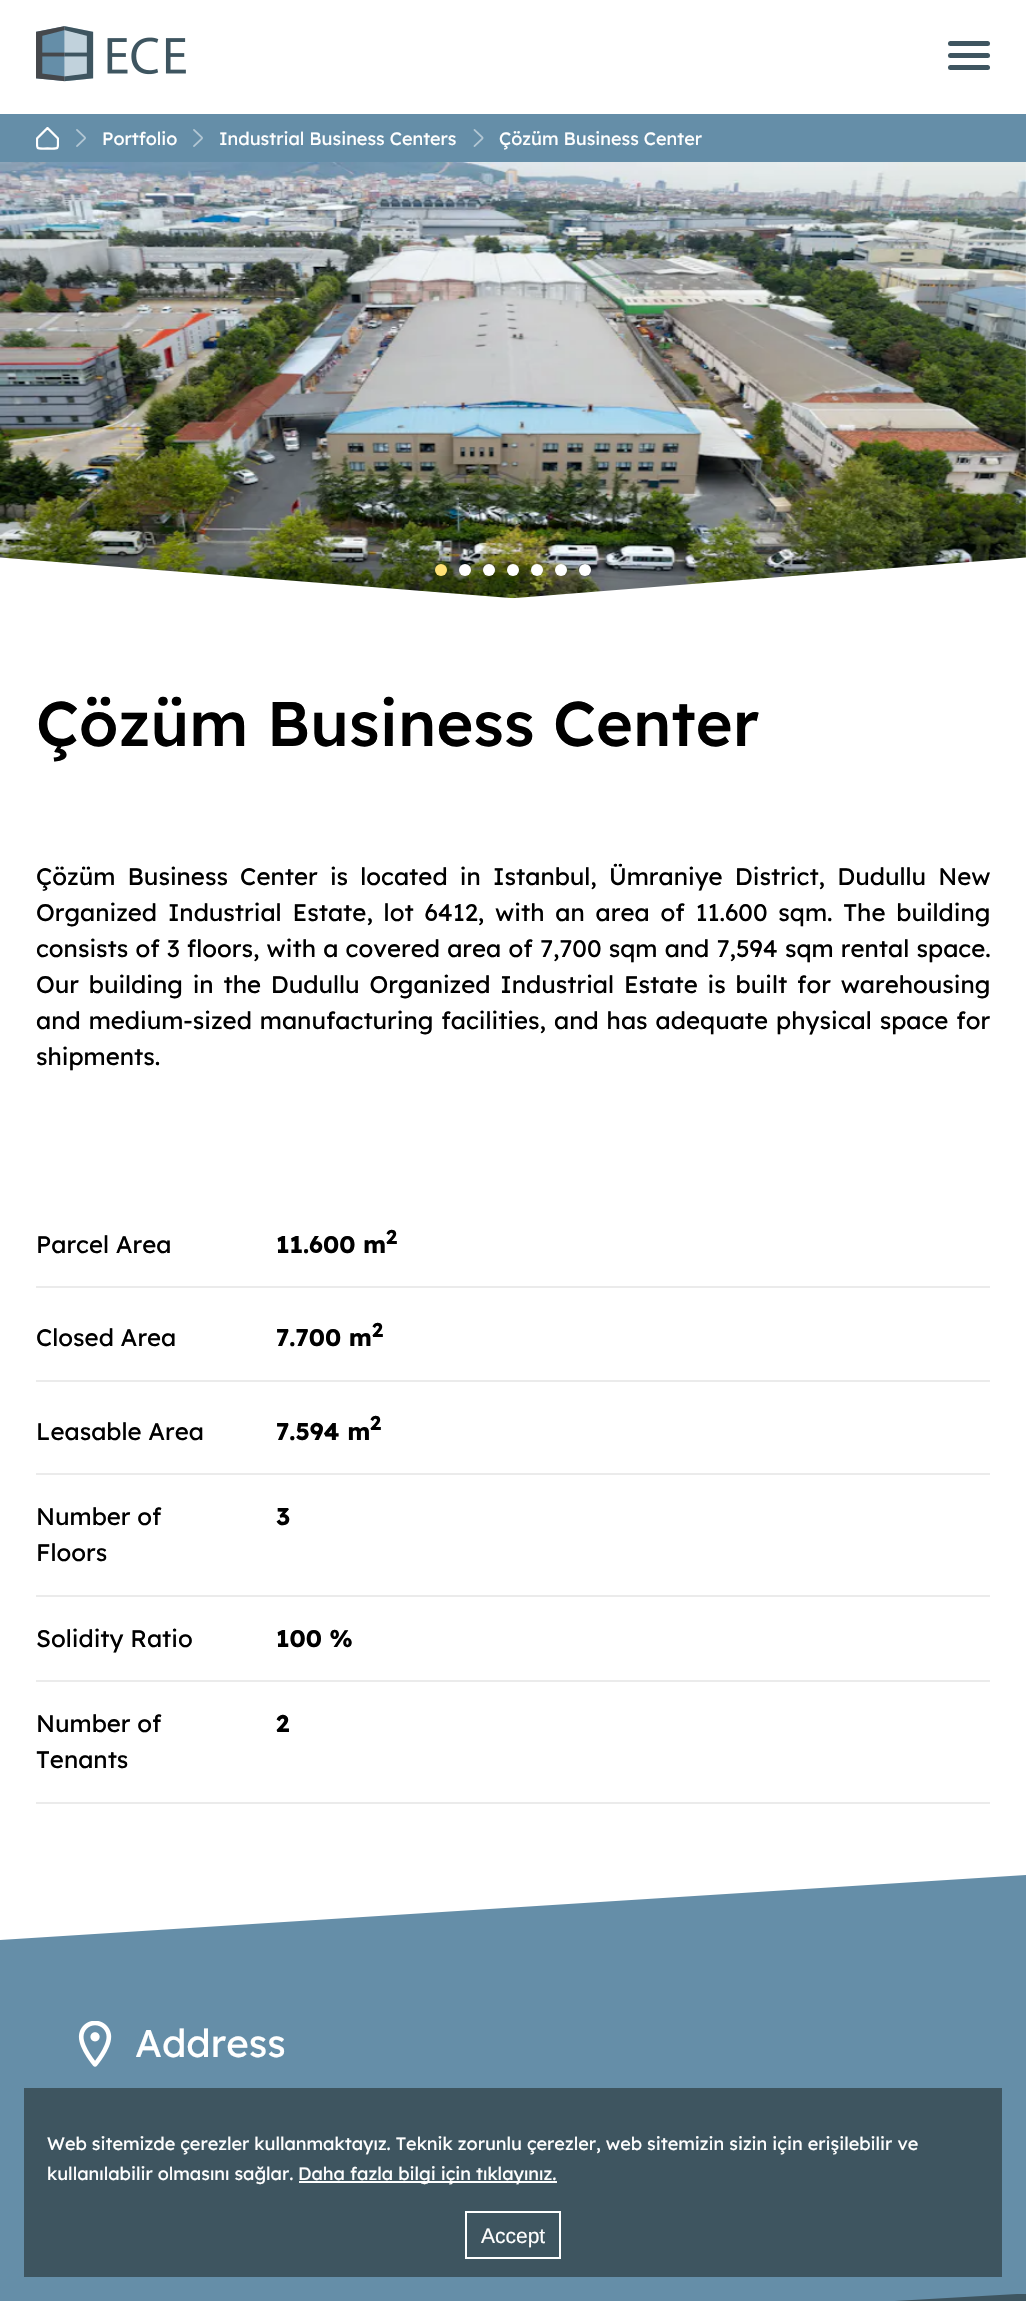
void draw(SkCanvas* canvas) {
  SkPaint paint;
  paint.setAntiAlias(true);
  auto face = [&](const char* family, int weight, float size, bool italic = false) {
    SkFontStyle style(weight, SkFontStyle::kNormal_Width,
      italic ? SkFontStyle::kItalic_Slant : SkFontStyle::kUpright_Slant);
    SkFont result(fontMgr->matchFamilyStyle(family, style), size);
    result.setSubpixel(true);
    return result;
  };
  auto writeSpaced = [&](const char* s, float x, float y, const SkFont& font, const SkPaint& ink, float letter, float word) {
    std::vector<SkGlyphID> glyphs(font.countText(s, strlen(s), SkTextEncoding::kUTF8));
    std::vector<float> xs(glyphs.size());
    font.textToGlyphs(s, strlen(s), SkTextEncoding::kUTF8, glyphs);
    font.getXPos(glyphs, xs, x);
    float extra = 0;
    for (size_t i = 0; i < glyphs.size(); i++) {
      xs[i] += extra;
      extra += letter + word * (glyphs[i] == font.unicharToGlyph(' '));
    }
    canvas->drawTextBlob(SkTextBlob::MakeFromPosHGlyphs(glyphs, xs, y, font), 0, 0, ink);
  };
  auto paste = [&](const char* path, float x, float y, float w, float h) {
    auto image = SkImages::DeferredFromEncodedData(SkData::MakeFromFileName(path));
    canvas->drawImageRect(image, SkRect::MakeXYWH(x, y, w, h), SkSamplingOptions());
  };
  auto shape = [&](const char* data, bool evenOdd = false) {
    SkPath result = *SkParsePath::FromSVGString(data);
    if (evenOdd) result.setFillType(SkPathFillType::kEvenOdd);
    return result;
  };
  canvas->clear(0xffffffff);
  paste("img/1.png", 36, 26, 150, 56);
  paint.setColor(0xff3e5560);
  canvas->drawRoundRect(SkRect::MakeXYWH(948, 41, 42, 5), 2.5f, 2.5f, paint);
  canvas->drawRoundRect(SkRect::MakeXYWH(948, 53, 42, 5), 2.5f, 2.5f, paint);
  canvas->drawRoundRect(SkRect::MakeXYWH(948, 65, 42, 5), 2.5f, 2.5f, paint);
  paint.setColor(0xff658ea8);
  canvas->drawRect(SkRect::MakeXYWH(0, 114, 1026, 48), paint);
  canvas->save();
  canvas->clipRect(SkRect::MakeXYWH(36, 127, 23, 23));
  paint.setStroke(true);
  paint.setStrokeWidth(2.3f);
  paint.setStrokeCap(SkPaint::kRound_Cap);
  paint.setStrokeJoin(SkPaint::kRound_Join);
  paint.setColor(0xffffffff);
  canvas->drawPath(shape("M58 138.5L47.5 128L37 138.5C37 150 35.5 148.5 47.5 148.5C59.5 148.5 58 150 58 138.5Z"), paint);
  canvas->restore();
  paste("img/2.png", 76, 129, 10, 18);
  paste("img/2.png", 193, 129, 10, 18);
  paste("img/3.png", 473, 129, 11, 18);
  paste("img/4.png", 0, 162, 1026, 437);
  canvas->save();
  canvas->clipRect(SkRect::MakeXYWH(0, 162, 1026, 450));
  paint.setStroke(false);
  canvas->drawPath(shape("M-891 552H-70L788 620H-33Z"), paint);
  canvas->drawPath(shape("M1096 552H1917L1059 620H238Z"), paint);
  canvas->restore();
  paint.setColor(0xffffe175);
  canvas->drawCircle(441, 570, 6, paint);
  paint.setColor(0xffffffff);
  canvas->drawCircle(465, 570, 6, paint);
  canvas->drawCircle(489, 570, 6, paint);
  canvas->drawCircle(513, 570, 6, paint);
  canvas->drawCircle(537, 570, 6, paint);
  canvas->drawCircle(561, 570, 6, paint);
  canvas->drawCircle(585, 570, 6, paint);
  {
    const struct { float x, y, w, h; SkColor color; } items[] = {
      {36, 1286, 954, 2, 0xffebebeb},
      {36, 1380, 954, 2, 0xffebebeb},
      {36, 1473, 954, 2, 0xffebebeb},
      {36, 1595, 954, 2, 0xffebebeb},
      {36, 1680, 954, 2, 0xffebebeb},
      {36, 1802, 954, 2, 0xffebebeb},
    };
    for (auto [x, y, w, h, color] : items) {
      paint.setColor(color);
      canvas->drawRect(SkRect::MakeXYWH(x, y, w, h), paint);
    }
  }
  paint.setColor(0xff658ea8);
  canvas->drawPath(shape("M0 1940V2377L1026 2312V1875Z"), paint);
  paste("img/5.png", 78, 2021, 34, 46);
  paint.setColor(0xff3e5560);
  canvas->drawPath(shape("M0 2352V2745H5L1026 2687V2294H1017Z"), paint);
  canvas->drawRect(SkRect::MakeXYWH(24, 2088, 978, 189), paint);
  paint.setColor(0xffffffff);
  canvas->drawRect(SkRect::MakeXYWH(299, 2181, 258, 2), paint);
  paint.setStroke(true);
  paint.setStrokeWidth(2);
  paint.setStrokeCap(SkPaint::kButt_Cap);
  paint.setStrokeJoin(SkPaint::kMiter_Join);
  canvas->drawRect(SkRect::MakeXYWH(466, 2212, 94, 46), paint);
  auto f0 = face("Lexend Deca", 400, 18);
  paint.setStroke(false);
  {
    const struct { const char* s; float x, y; } items[] = {
      {"Portfolio", 102, 145},
      {"Industrial Business Centers", 219, 145},
      {"Çözüm Business Center", 499, 145},
    };
    for (auto [s, x, y] : items) {
      canvas->drawString(s, x, y, f0, paint);
    }
  }
  auto f1 = face("Lexend Deca", 500, 63);
  paint.setColor(0xff000000);
  canvas->drawString("Çözüm Business Center", 36, 746, f1, paint);
  auto f2 = face("Lexend Deca", 400, 24);
  writeSpaced("Çözüm Business Center is located in Istanbul, Ümraniye District, Dudullu New", 36, 885, f2, paint, 0, 5.5f);
  writeSpaced("Organized Industrial Estate, lot 6412, with an area of 11.600 sqm. The building", 36, 921, f2, paint, 0, 4.1f);
  writeSpaced("consists of 3 floors, with a covered area of 7,700 sqm and 7,594 sqm rental space.", 36, 957, f2, paint, 0, 0.5f);
  writeSpaced("Our building in the Dudullu Organized Industrial Estate is built for warehousing", 36, 993, f2, paint, 0, 3.1f);
  writeSpaced("and medium-sized manufacturing facilities, and has adequate physical space for", 36, 1029, f2, paint, 0, 1.25f);
  canvas->drawString("shipments.", 36, 1065, f2, paint);
  canvas->drawString("Parcel Area", 36, 1253, f2, paint);
  auto f3 = face("Lexend Deca", 700, 24);
  canvas->drawString("11.600 m", 276, 1253, f3, paint);
  auto f4 = face("Lexend Deca", 700, 20);
  canvas->drawString("2", 386, 1244, f4, paint);
  canvas->drawString("Closed Area", 36, 1346, f2, paint);
  canvas->drawString("7.700 m", 276, 1346, f3, paint);
  canvas->drawString("2", 372, 1337, f4, paint);
  canvas->drawString("Leasable Area", 36, 1440, f2, paint);
  canvas->drawString("7.594 m", 276, 1440, f3, paint);
  canvas->drawString("2", 370, 1430, f4, paint);
  canvas->drawString("Number of", 36, 1525, f2, paint);
  canvas->drawString("Floors", 36, 1561, f2, paint);
  canvas->drawString("3", 276, 1525, f3, paint);
  canvas->drawString("Solidity Ratio", 36, 1647, f2, paint);
  canvas->drawString("100 %", 276, 1647, f3, paint);
  canvas->drawString("Number of", 36, 1732, f2, paint);
  canvas->drawString("Tenants", 36, 1768, f2, paint);
  canvas->drawString("2", 276, 1732, f3, paint);
  auto f5 = face("Lexend Deca", 400, 38.5f);
  paint.setColor(0xffffffff);
  canvas->drawString("Address", 135, 2057, f5, paint);
  {
    const struct { const char* s; float x, y; } items[] = {
      {"Web sitemizde çerezler kullanmaktayız. Teknik zorunlu çerezler, web sitemizin sizin için erişilebilir ve", 47, 2150},
      {"kullanılabilir olmasını sağlar.", 47, 2180},
      {"Daha fazla bilgi için tıklayınız.", 298, 2180},
    };
    for (auto [s, x, y] : items) {
      canvas->drawString(s, x, y, f0, paint);
    }
  }
  auto f6 = face("Liberation Sans", 400, 21);
  canvas->drawString("Accept", 481, 2243, f6, paint);
}
